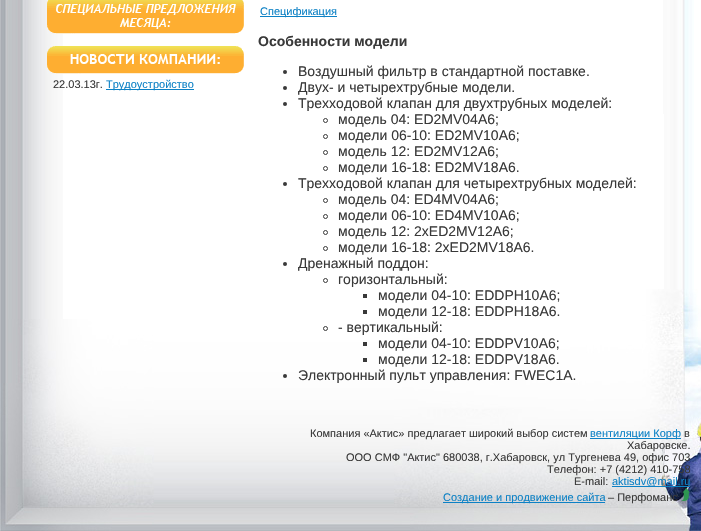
void draw(SkCanvas* canvas) {
  SkPaint paint;
  paint.setAntiAlias(true);
  auto face = [&](const char* family, int weight, float size, bool italic = false) {
    SkFontStyle style(weight, SkFontStyle::kNormal_Width,
      italic ? SkFontStyle::kItalic_Slant : SkFontStyle::kUpright_Slant);
    SkFont result(fontMgr->matchFamilyStyle(family, style), size);
    result.setSubpixel(true);
    return result;
  };
  auto paste = [&](const char* path, float x, float y, float w, float h) {
    auto image = SkImages::DeferredFromEncodedData(SkData::MakeFromFileName(path));
    canvas->drawImageRect(image, SkRect::MakeXYWH(x, y, w, h), SkSamplingOptions());
  };
  canvas->clear(0xffffffff);
  paste("img/1.png", 0, 0, 63, 319);
  paste("img/2.png", 664, 0, 30, 289);
  paste("img/3.png", 154, 342, 240, 189);
  paint.setColor(0xfffafafa);
  canvas->drawRect(SkRect::MakeXYWH(663, 0, 1, 114), paint);
  paste("img/4.png", 0, 319, 154, 212);
  paste("img/5.png", 394, 289, 307, 242);
  paste("img/6.png", 47, 0, 197, 34);
  paste("img/7.png", 47, 46, 197, 28);
  paint.setColor(0xff0c81c5);
  canvas->drawRect(SkRect::MakeXYWH(106, 89, 88, 1), paint);
  canvas->drawRect(SkRect::MakeXYWH(260, 16, 77, 1), paint);
  paint.setColor(0xff393939);
  canvas->drawCircle(285, 72, 2, paint);
  canvas->drawCircle(285, 88, 2, paint);
  canvas->drawCircle(285, 104, 2, paint);
  paint.setStroke(true);
  paint.setStrokeWidth(1);
  canvas->drawCircle(325.5f, 120.5f, 2, paint);
  canvas->drawCircle(325.5f, 136.5f, 2, paint);
  canvas->drawCircle(325.5f, 152.5f, 2, paint);
  canvas->drawCircle(325.5f, 168.5f, 2, paint);
  paint.setStroke(false);
  canvas->drawCircle(285, 184, 2, paint);
  paint.setStroke(true);
  canvas->drawCircle(325.5f, 200.5f, 2, paint);
  canvas->drawCircle(325.5f, 216.5f, 2, paint);
  canvas->drawCircle(325.5f, 232.5f, 2, paint);
  canvas->drawCircle(325.5f, 248.5f, 2, paint);
  paint.setStroke(false);
  canvas->drawCircle(285, 264, 2, paint);
  paint.setStroke(true);
  canvas->drawCircle(325.5f, 280.5f, 2, paint);
  paint.setStroke(false);
  canvas->drawRect(SkRect::MakeXYWH(363, 294, 4, 4), paint);
  canvas->drawRect(SkRect::MakeXYWH(363, 310, 4, 4), paint);
  paint.setStroke(true);
  canvas->drawCircle(325.5f, 328.5f, 2, paint);
  paint.setStroke(false);
  canvas->drawRect(SkRect::MakeXYWH(363, 342, 4, 4), paint);
  canvas->drawRect(SkRect::MakeXYWH(363, 358, 4, 4), paint);
  canvas->drawCircle(285, 376, 2, paint);
  {
    const struct { float x, y, w, h; SkColor color; } items[] = {
      {590, 438, 91, 1, 0xff0c81c5},
      {612, 486, 78, 1, 0xff0c81c5},
      {443, 502, 162, 1, 0xff0c81c5},
    };
    for (auto [x, y, w, h, color] : items) {
      paint.setColor(color);
      canvas->drawRect(SkRect::MakeXYWH(x, y, w, h), paint);
    }
  }
  paste("img/8.png", 681, 488, 9, 13);
  auto f0 = face("Liberation Sans", 400, 11);
  paint.setColor(0xff393939);
  canvas->drawString("22.03.13г.", 53, 88, f0, paint);
  paint.setColor(0xff0c81c5);
  canvas->drawString("Трудоустройство", 106, 88, f0, paint);
  canvas->drawString("Спецификация", 260, 15, f0, paint);
  auto f1 = face("Liberation Sans", 700, 14);
  paint.setColor(0xff393939);
  canvas->drawString("Особенности модели", 258, 46, f1, paint);
  auto f2 = face("Liberation Sans", 400, 14);
  {
    const struct { const char* s; float x, y; } items[] = {
      {"Воздушный фильтр в стандартной поставке.", 298, 76},
      {"Двух- и четырехтрубные модели.", 298, 92},
      {"Трехходовой клапан для двухтрубных моделей:", 298, 108},
      {"модель 04: ED2MV04A6;", 338, 124},
      {"модели 06-10: ED2MV10A6;", 338, 140},
      {"модель 12: ED2MV12A6;", 338, 156},
      {"модели 16-18: ED2MV18A6.", 338, 172},
      {"Трехходовой клапан для четырехтрубных моделей:", 298, 188},
      {"модель 04: ED4MV04A6;", 338, 204},
      {"модели 06-10: ED4MV10A6;", 338, 220},
      {"модель 12: 2хED2MV12A6;", 338, 236},
      {"модели 16-18: 2хED2MV18A6.", 338, 252},
      {"Дренажный поддон:", 298, 268},
      {"горизонтальный:", 338, 284},
      {"модели 04-10: EDDPH10A6;", 378, 300},
      {"модели 12-18: EDDPH18A6.", 378, 316},
      {"- вертикальный:", 338, 332},
      {"модели 04-10: EDDPV10A6;", 378, 348},
      {"модели 12-18: EDDPV18A6.", 378, 364},
      {"Электронный пульт управления: FWEC1A.", 298, 380},
    };
    for (auto [s, x, y] : items) {
      canvas->drawString(s, x, y, f2, paint);
    }
  }
  canvas->drawString("Компания «Актис» предлагает широкий выбор систем", 310, 437, f0, paint);
  paint.setColor(0xff0c81c5);
  canvas->drawString("вентиляции Корф", 590, 437, f0, paint);
  paint.setColor(0xff393939);
  {
    const struct { const char* s; float x, y; } items[] = {
      {"в", 684, 437},
      {"Хабаровске.", 627, 449},
      {"ООО СМФ \"Актис\" 680038, г.Хабаровск, ул Тургенева 49, офис 703", 346, 461},
      {"Телефон: +7 (4212) 410-758", 547, 473},
      {"E-mail:", 574, 485},
    };
    for (auto [s, x, y] : items) {
      canvas->drawString(s, x, y, f0, paint);
    }
  }
  paint.setColor(0xff0c81c5);
  canvas->drawString("aktisdv@mail.ru", 612, 485, f0, paint);
  canvas->drawString("Создание и продвижение сайта", 443, 501, f0, paint);
  paint.setColor(0xff393939);
  canvas->drawString("– Перфоманс", 608, 501, f0, paint);
}
